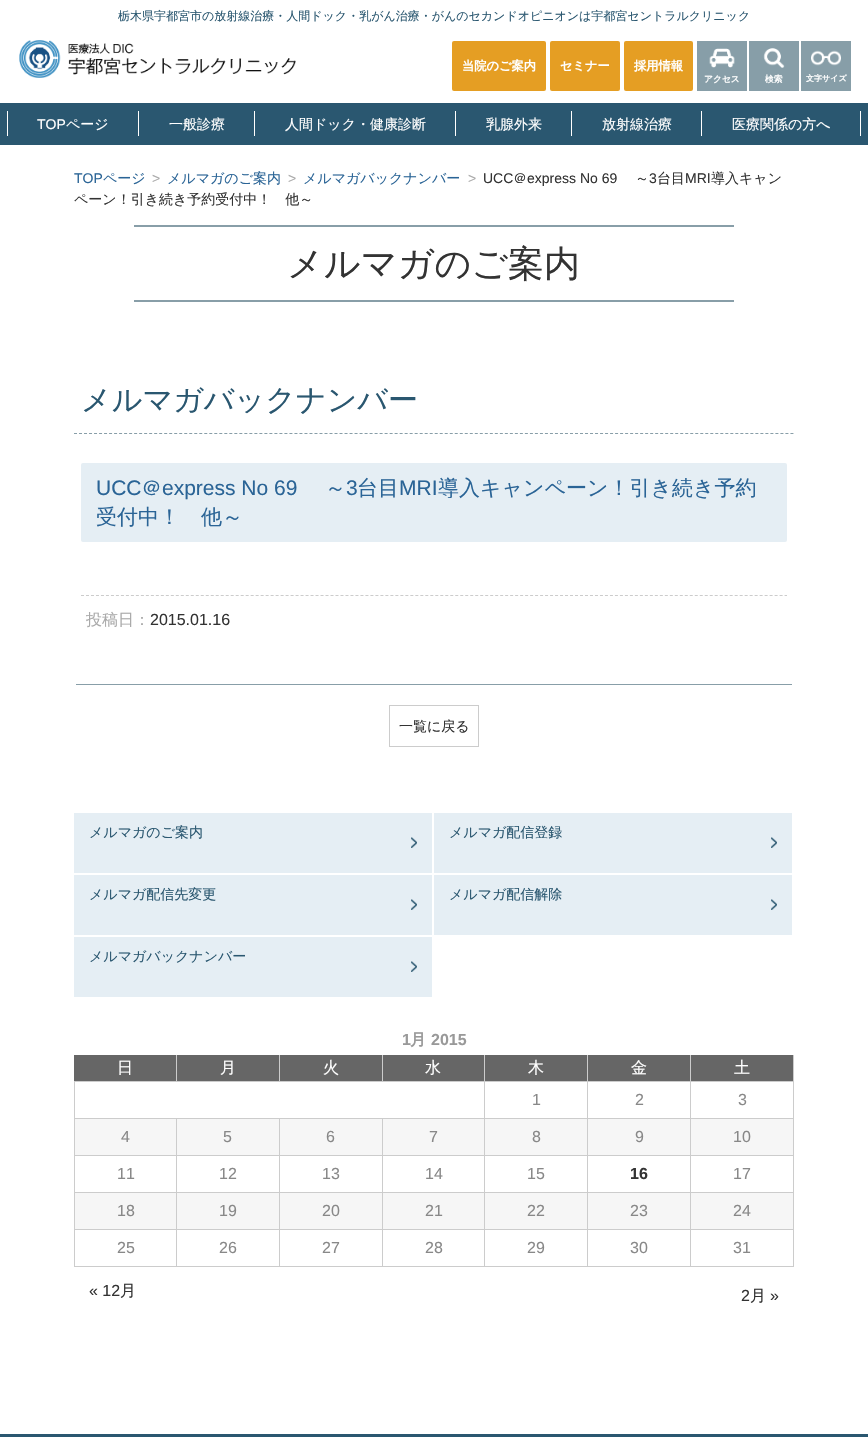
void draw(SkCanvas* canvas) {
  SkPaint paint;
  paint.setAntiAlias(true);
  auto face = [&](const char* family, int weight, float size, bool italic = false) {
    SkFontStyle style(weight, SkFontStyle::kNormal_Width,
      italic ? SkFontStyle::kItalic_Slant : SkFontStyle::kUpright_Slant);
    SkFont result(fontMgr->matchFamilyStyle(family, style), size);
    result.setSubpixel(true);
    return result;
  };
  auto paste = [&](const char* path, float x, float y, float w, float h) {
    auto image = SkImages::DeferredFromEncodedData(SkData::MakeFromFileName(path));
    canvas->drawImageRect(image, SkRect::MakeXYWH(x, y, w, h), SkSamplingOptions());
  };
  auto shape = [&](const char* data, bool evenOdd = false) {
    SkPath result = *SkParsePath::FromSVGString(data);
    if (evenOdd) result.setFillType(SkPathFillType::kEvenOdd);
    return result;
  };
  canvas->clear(0xffffffff);
  paste("img/1.png", 19, 40, 277, 38);
  paint.setColor(0xffe59e23);
  canvas->drawRoundRect(SkRect::MakeXYWH(452, 41, 94, 50), 2, 2, paint);
  canvas->drawRoundRect(SkRect::MakeXYWH(550, 41, 70, 50), 2, 2, paint);
  canvas->drawRoundRect(SkRect::MakeXYWH(624, 41, 69, 50), 2, 2, paint);
  paint.setColor(0xff879ea8);
  canvas->drawRect(SkRect::MakeXYWH(697, 41, 50, 50), paint);
  paste("img/2.png", 709, 48, 26, 20);
  canvas->drawRect(SkRect::MakeXYWH(749, 41, 50, 50), paint);
  paste("img/3.png", 763, 48, 22, 20);
  canvas->drawRect(SkRect::MakeXYWH(801, 41, 50, 50), paint);
  paste("img/4.png", 811, 50, 30, 16);
  {
    const struct { float x, y, w, h; SkColor color; } items[] = {
      {0, 103, 868, 42, 0xff2a5770},
      {7, 111, 1, 25, 0xffffffff},
      {138, 111, 1, 25, 0xffffffff},
      {254, 111, 1, 25, 0xffffffff},
      {455, 111, 1, 25, 0xffffffff},
      {571, 111, 1, 25, 0xffffffff},
      {701, 111, 1, 25, 0xffffffff},
      {860, 111, 1, 25, 0xffffffff},
      {134, 225, 600, 2, 0xff889ea8},
      {134, 300, 600, 2, 0xff889ea8},
    };
    for (auto [x, y, w, h, color] : items) {
      paint.setColor(color);
      canvas->drawRect(SkRect::MakeXYWH(x, y, w, h), paint);
    }
  }
  paint.setStroke(true);
  paint.setStrokeWidth(1);
  paint.setPathEffect(SkDashPathEffect::Make({{3, 2.01f}}, 0));
  canvas->drawPath(shape("M74 433.5H794"), paint);
  paint.setPathEffect(nullptr);
  paint.setStroke(false);
  paint.setColor(0xffe5eef4);
  canvas->drawRoundRect(SkRect::MakeXYWH(81, 463, 706, 79), 2, 2, paint);
  paint.setStroke(true);
  paint.setColor(0xffcccccc);
  paint.setPathEffect(SkDashPathEffect::Make({{3, 1.99f}}, 0));
  canvas->drawPath(shape("M81 595.5H787"), paint);
  paint.setPathEffect(nullptr);
  paint.setStroke(false);
  paint.setColor(0xff889ea8);
  canvas->drawRect(SkRect::MakeXYWH(76, 684, 716, 1), paint);
  paint.setStroke(true);
  paint.setColor(0xffcccccc);
  canvas->drawRect(SkRect::MakeXYWH(389.5f, 705.5f, 89, 41), paint);
  paint.setStroke(false);
  paint.setColor(0xffe5eef4);
  canvas->drawRect(SkRect::MakeXYWH(74, 813, 358, 60), paint);
  paste("img/5.png", 411, 837, 6, 11);
  canvas->drawRect(SkRect::MakeXYWH(434, 813, 358, 60), paint);
  paste("img/5.png", 771, 837, 6, 11);
  canvas->drawRect(SkRect::MakeXYWH(74, 875, 358, 60), paint);
  paste("img/5.png", 411, 899, 6, 11);
  canvas->drawRect(SkRect::MakeXYWH(434, 875, 358, 60), paint);
  paste("img/5.png", 771, 899, 6, 11);
  canvas->drawRect(SkRect::MakeXYWH(74, 937, 358, 60), paint);
  paste("img/5.png", 411, 961, 6, 11);
  {
    const struct { float x, y, w, h; SkColor color; } items[] = {
      {74, 1055, 102, 26, 0xff666666},
      {176, 1055, 1, 27, 0xffcccccc},
      {74, 1081, 103, 1, 0xffcccccc},
      {177, 1055, 102, 26, 0xff666666},
      {279, 1055, 1, 27, 0xffcccccc},
      {177, 1081, 103, 1, 0xffcccccc},
      {280, 1055, 102, 26, 0xff666666},
      {382, 1055, 1, 27, 0xffcccccc},
      {280, 1081, 103, 1, 0xffcccccc},
      {383, 1055, 101, 26, 0xff666666},
      {484, 1055, 1, 64, 0xffcccccc},
      {383, 1081, 102, 1, 0xffcccccc},
      {485, 1055, 102, 26, 0xff666666},
      {587, 1055, 1, 64, 0xffcccccc},
      {485, 1081, 103, 1, 0xffcccccc},
      {588, 1055, 102, 26, 0xff666666},
      {690, 1055, 1, 64, 0xffcccccc},
      {588, 1081, 103, 1, 0xffcccccc},
      {691, 1055, 102, 26, 0xff666666},
      {793, 1055, 1, 212, 0xffcccccc},
      {691, 1081, 103, 1, 0xffcccccc},
      {74, 1118, 720, 1, 0xffcccccc},
      {74, 1082, 1, 37, 0xffcccccc},
      {75, 1119, 718, 36, 0xfff6f6f6},
      {176, 1119, 1, 74, 0xffcccccc},
      {74, 1155, 103, 1, 0xffcccccc},
      {74, 1119, 1, 37, 0xffcccccc},
      {279, 1119, 1, 74, 0xffcccccc},
      {177, 1155, 103, 1, 0xffcccccc},
      {382, 1119, 1, 74, 0xffcccccc},
      {280, 1155, 103, 1, 0xffcccccc},
      {484, 1119, 1, 74, 0xffcccccc},
      {383, 1155, 102, 1, 0xffcccccc},
      {587, 1119, 1, 74, 0xffcccccc},
      {485, 1155, 103, 1, 0xffcccccc},
      {690, 1119, 1, 74, 0xffcccccc},
      {588, 1155, 206, 1, 0xffcccccc},
      {74, 1192, 720, 1, 0xffcccccc},
      {74, 1156, 1, 37, 0xffcccccc},
      {75, 1193, 718, 36, 0xfff6f6f6},
      {176, 1193, 1, 74, 0xffcccccc},
      {74, 1229, 103, 1, 0xffcccccc},
      {74, 1193, 1, 37, 0xffcccccc},
      {279, 1193, 1, 74, 0xffcccccc},
      {177, 1229, 103, 1, 0xffcccccc},
      {382, 1193, 1, 74, 0xffcccccc},
      {280, 1229, 103, 1, 0xffcccccc},
      {484, 1193, 1, 74, 0xffcccccc},
      {383, 1229, 102, 1, 0xffcccccc},
      {587, 1193, 1, 74, 0xffcccccc},
      {485, 1229, 103, 1, 0xffcccccc},
      {690, 1193, 1, 74, 0xffcccccc},
      {588, 1229, 206, 1, 0xffcccccc},
      {74, 1266, 720, 1, 0xffcccccc},
      {74, 1230, 1, 37, 0xffcccccc},
      {0, 1434, 868, 3, 0xff2a5770},
    };
    for (auto [x, y, w, h, color] : items) {
      paint.setColor(color);
      canvas->drawRect(SkRect::MakeXYWH(x, y, w, h), paint);
    }
  }
  auto f0 = face("WenQuanYi Zen Hei", 500, 12);
  canvas->drawString("栃木県宇都宮市の放射線治療・人間ドック・乳がん治療・がんのセカンドオピニオンは宇都宮セントラルクリニック", 118, 20, f0, paint);
  auto f1 = face("WenQuanYi Zen Hei", 700, 12.25f);
  paint.setColor(0xffffffff);
  {
    const struct { const char* s; float x, y; } items[] = {
      {"当院のご案内", 462, 70},
      {"セミナー", 560, 70},
      {"採用情報", 634, 70},
    };
    for (auto [s, x, y] : items) {
      canvas->drawString(s, x, y, f1, paint);
    }
  }
  auto f2 = face("WenQuanYi Zen Hei", 700, 8.75f);
  canvas->drawString("アクセス", 704, 82, f2, paint);
  canvas->drawString("検索", 765, 82, f2, paint);
  auto f3 = face("WenQuanYi Zen Hei", 700, 8);
  canvas->drawString("文字サイズ", 806, 81, f3, paint);
  auto f4 = face("Liberation Sans", 400, 14);
  canvas->drawString("TOP", 37, 129, f4, paint);
  auto f5 = face("WenQuanYi Zen Hei", 500, 14);
  {
    const struct { const char* s; float x, y; } items[] = {
      {"ページ", 66, 129},
      {"一般診療", 169, 129},
      {"人間ドック・健康診断", 285, 129},
      {"乳腺外来", 486, 129},
      {"放射線治療", 602, 129},
      {"医療関係の方へ", 732, 129},
    };
    for (auto [s, x, y] : items) {
      canvas->drawString(s, x, y, f5, paint);
    }
  }
  paint.setColor(0xff2a6496);
  canvas->drawString("TOP", 74, 183, f4, paint);
  canvas->drawString("ページ", 103, 183, f5, paint);
  paint.setColor(0xffaaaaaa);
  canvas->drawString(">", 152, 183, f4, paint);
  paint.setColor(0xff2a6496);
  canvas->drawString("メルマガのご案内", 167, 183, f5, paint);
  paint.setColor(0xffaaaaaa);
  canvas->drawString(">", 288, 183, f4, paint);
  paint.setColor(0xff2a6496);
  canvas->drawString("メルマガバックナンバー", 303, 183, f5, paint);
  paint.setColor(0xffaaaaaa);
  canvas->drawString(">", 468, 183, f4, paint);
  paint.setColor(0xff333333);
  canvas->drawString("UCC", 483, 183, f4, paint);
  canvas->drawString("＠", 513, 183, f5, paint);
  canvas->drawString("express No 69", 527, 183, f4, paint);
  canvas->drawString("～", 635, 183, f5, paint);
  canvas->drawString("3", 649, 183, f4, paint);
  canvas->drawString("台目", 657, 183, f5, paint);
  canvas->drawString("MRI", 685, 183, f4, paint);
  canvas->drawString("導入キャン", 711, 183, f5, paint);
  canvas->drawString("ペーン！引き続き予約受付中！　他～", 74, 204, f5, paint);
  auto f6 = face("WenQuanYi Zen Hei", 500, 36);
  canvas->drawString("メルマガのご案内", 287, 276, f6, paint);
  auto f7 = face("WenQuanYi Zen Hei", 500, 30);
  paint.setColor(0xff2a5770);
  canvas->drawString("メルマガバックナンバー", 81, 410, f7, paint);
  auto f8 = face("Liberation Sans", 400, 21);
  paint.setColor(0xff2a6496);
  canvas->drawString("UCC", 96, 495, f8, paint);
  auto f9 = face("WenQuanYi Zen Hei", 500, 21);
  canvas->drawString("＠", 141, 495, f9, paint);
  canvas->drawString("express No 69", 162, 495, f8, paint);
  canvas->drawString("～", 325, 495, f9, paint);
  canvas->drawString("3", 346, 495, f8, paint);
  canvas->drawString("台目", 357, 495, f9, paint);
  canvas->drawString("MRI", 399, 495, f8, paint);
  canvas->drawString("導入キャンペーン！引き続き予約", 438, 495, f9, paint);
  canvas->drawString("受付中！　他～", 96, 524, f9, paint);
  auto f10 = face("WenQuanYi Zen Hei", 500, 16);
  paint.setColor(0xffaaaaaa);
  canvas->drawString("投稿日：", 86, 625, f10, paint);
  auto f11 = face("Liberation Sans", 400, 16);
  paint.setColor(0xff333333);
  canvas->drawString("2015.01.16", 150, 625, f11, paint);
  canvas->drawString("一覧に戻る", 399, 731, f5, paint);
  paint.setColor(0xff2a5770);
  {
    const struct { const char* s; float x, y; } items[] = {
      {"メルマガのご案内", 89, 837},
      {"メルマガ配信登録", 449, 837},
      {"メルマガ配信先変更", 89, 899},
      {"メルマガ配信解除", 449, 899},
      {"メルマガバックナンバー", 89, 961},
    };
    for (auto [s, x, y] : items) {
      canvas->drawString(s, x, y, f5, paint);
    }
  }
  auto f12 = face("Liberation Sans", 700, 16);
  paint.setColor(0xff999999);
  canvas->drawString("1", 402, 1045, f12, paint);
  auto f13 = face("WenQuanYi Zen Hei", 700, 16);
  canvas->drawString("月", 410, 1045, f13, paint);
  canvas->drawString("2015", 431, 1045, f12, paint);
  paint.setColor(0xffffffff);
  {
    const struct { const char* s; float x, y; } items[] = {
      {"日", 117, 1073},
      {"月", 220, 1073},
      {"火", 323, 1073},
      {"水", 425, 1073},
      {"木", 528, 1073},
      {"金", 631, 1073},
      {"土", 734, 1073},
    };
    for (auto [s, x, y] : items) {
      canvas->drawString(s, x, y, f10, paint);
    }
  }
  paint.setColor(0xff888888);
  {
    const struct { const char* s; float x, y; } items[] = {
      {"1", 532, 1105},
      {"2", 635, 1105},
      {"3", 738, 1105},
      {"4", 121, 1142},
      {"5", 223, 1142},
      {"6", 326, 1142},
      {"7", 429, 1142},
      {"8", 532, 1142},
      {"9", 635, 1142},
      {"10", 733, 1142},
      {"11", 117, 1179},
      {"12", 219, 1179},
      {"13", 322, 1179},
      {"14", 425, 1179},
      {"15", 527, 1179},
    };
    for (auto [s, x, y] : items) {
      canvas->drawString(s, x, y, f11, paint);
    }
  }
  paint.setColor(0xff333333);
  canvas->drawString("16", 630, 1179, f12, paint);
  paint.setColor(0xff888888);
  {
    const struct { const char* s; float x, y; } items[] = {
      {"17", 733, 1179},
      {"18", 117, 1216},
      {"19", 219, 1216},
      {"20", 322, 1216},
      {"21", 425, 1216},
      {"22", 527, 1216},
      {"23", 630, 1216},
      {"24", 733, 1216},
      {"25", 117, 1253},
      {"26", 219, 1253},
      {"27", 322, 1253},
      {"28", 425, 1253},
      {"29", 527, 1253},
      {"30", 630, 1253},
      {"31", 733, 1253},
    };
    for (auto [s, x, y] : items) {
      canvas->drawString(s, x, y, f11, paint);
    }
  }
  paint.setColor(0xff333333);
  canvas->drawString("« 12", 89, 1296, f11, paint);
  canvas->drawString("月", 120, 1296, f10, paint);
  canvas->drawString("2", 741, 1301, f11, paint);
  canvas->drawString("月", 750, 1301, f10, paint);
  canvas->drawString("»", 770, 1301, f11, paint);
}
